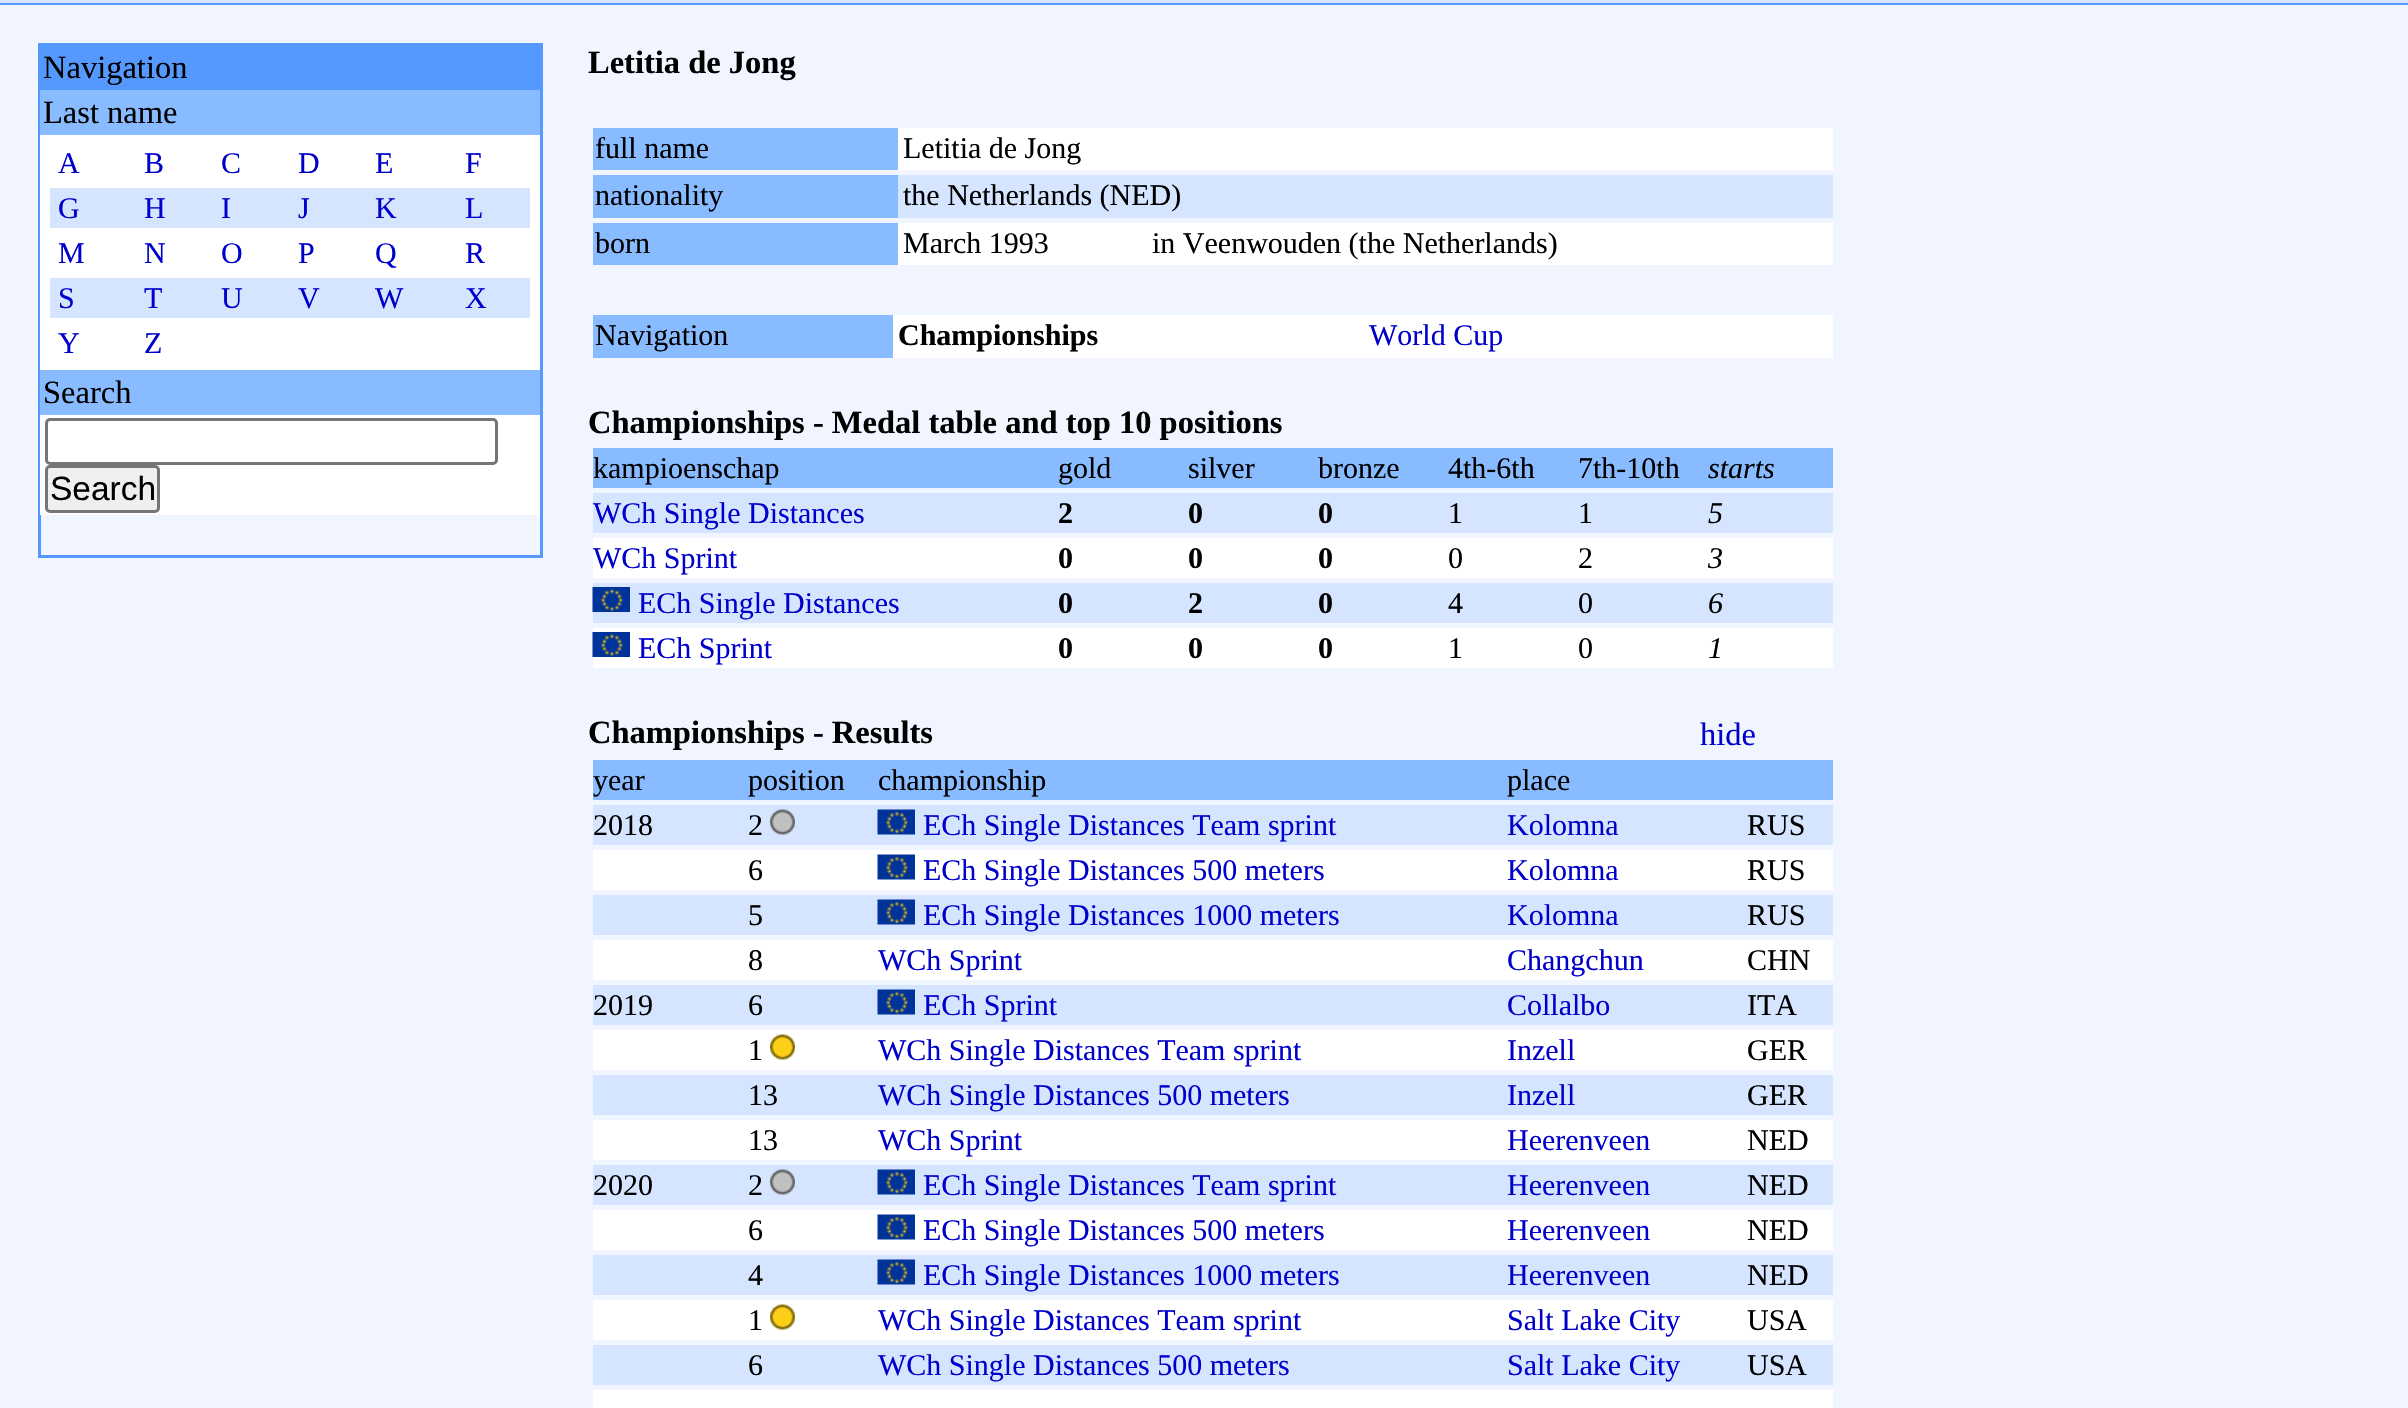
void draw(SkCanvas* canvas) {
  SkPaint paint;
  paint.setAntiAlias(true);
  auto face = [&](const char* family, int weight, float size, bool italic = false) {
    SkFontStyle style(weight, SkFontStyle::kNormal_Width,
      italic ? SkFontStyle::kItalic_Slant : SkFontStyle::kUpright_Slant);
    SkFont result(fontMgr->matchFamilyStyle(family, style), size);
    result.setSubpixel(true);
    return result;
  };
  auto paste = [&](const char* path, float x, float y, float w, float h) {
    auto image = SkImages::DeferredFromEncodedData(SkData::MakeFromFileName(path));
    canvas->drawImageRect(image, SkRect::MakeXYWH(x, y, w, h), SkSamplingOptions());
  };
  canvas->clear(0xffd5e5ff);
  paint.setColor(0xff5599ff);
  canvas->drawRect(SkRect::MakeXYWH(0, 3, 2408, 2), paint);
  paint.setColor(0xfff0f5ff);
  canvas->drawRect(SkRect::MakeXYWH(0, 5, 2408, 1403), paint);
  paint.setStroke(true);
  paint.setStrokeWidth(3);
  paint.setColor(0xff5599ff);
  canvas->drawRect(SkRect::MakeXYWH(39.5f, 44.5f, 502, 512), paint);
  paint.setStroke(false);
  {
    const struct { float x, y, w, h; SkColor color; } items[] = {
      {41, 46, 499, 44, 0xff5599ff},
      {40, 90, 500, 45, 0xff88bbff},
      {40, 135, 500, 235, 0xffffffff},
      {50, 188, 480, 40, 0xffd5e5ff},
      {50, 278, 480, 40, 0xffd5e5ff},
      {40, 370, 500, 45, 0xff88bbff},
      {40, 415, 500, 100, 0xffffffff},
    };
    for (auto [x, y, w, h, color] : items) {
      paint.setColor(color);
      canvas->drawRect(SkRect::MakeXYWH(x, y, w, h), paint);
    }
  }
  paint.setStroke(true);
  paint.setColor(0xff767676);
  canvas->drawRoundRect(SkRect::MakeXYWH(46.5f, 419.5f, 450, 44), 3.5f, 3.5f, paint);
  paint.setStroke(false);
  paint.setColor(0xffefefef);
  canvas->drawRoundRect(SkRect::MakeXYWH(46.5f, 466.5f, 112, 45), 3.5f, 3.5f, paint);
  paint.setStroke(true);
  paint.setColor(0xff767676);
  canvas->drawRoundRect(SkRect::MakeXYWH(46.5f, 466.5f, 112, 45), 3.5f, 3.5f, paint);
  paint.setStroke(false);
  {
    const struct { float x, y, w, h; SkColor color; } items[] = {
      {898, 128, 935, 42, 0xffffffff},
      {593, 128, 305, 42, 0xff88bbff},
      {898, 175, 935, 43, 0xffd5e5ff},
      {593, 175, 305, 43, 0xff88bbff},
      {898, 223, 935, 42, 0xffffffff},
      {593, 223, 305, 42, 0xff88bbff},
      {893, 315, 940, 43, 0xffffffff},
      {593, 315, 300, 43, 0xff88bbff},
      {593, 448, 1240, 40, 0xff88bbff},
      {593, 493, 1240, 40, 0xffd5e5ff},
      {593, 538, 1240, 40, 0xffffffff},
      {593, 583, 1240, 40, 0xffd5e5ff},
    };
    for (auto [x, y, w, h, color] : items) {
      paint.setColor(color);
      canvas->drawRect(SkRect::MakeXYWH(x, y, w, h), paint);
    }
  }
  paste("img/1.png", 592, 587, 38, 25);
  paint.setColor(0xffffffff);
  canvas->drawRect(SkRect::MakeXYWH(593, 628, 1240, 40), paint);
  paste("img/1.png", 592, 632, 38, 25);
  paint.setColor(0xff88bbff);
  canvas->drawRect(SkRect::MakeXYWH(593, 760, 1240, 40), paint);
  paint.setColor(0xffd5e5ff);
  canvas->drawRect(SkRect::MakeXYWH(593, 805, 1240, 40), paint);
  paste("img/2.png", 770, 809, 25, 26);
  paste("img/3.png", 877, 809, 38, 26);
  paint.setColor(0xffffffff);
  canvas->drawRect(SkRect::MakeXYWH(593, 850, 1240, 40), paint);
  paste("img/4.png", 877, 854, 38, 26);
  paint.setColor(0xffd5e5ff);
  canvas->drawRect(SkRect::MakeXYWH(593, 895, 1240, 40), paint);
  paste("img/3.png", 877, 899, 38, 26);
  paint.setColor(0xffffffff);
  canvas->drawRect(SkRect::MakeXYWH(593, 940, 1240, 40), paint);
  paint.setColor(0xffd5e5ff);
  canvas->drawRect(SkRect::MakeXYWH(593, 985, 1240, 40), paint);
  paste("img/3.png", 877, 989, 38, 26);
  paint.setColor(0xffffffff);
  canvas->drawRect(SkRect::MakeXYWH(593, 1030, 1240, 40), paint);
  paste("img/5.png", 770, 1034, 25, 26);
  {
    const struct { float x, y, w, h; SkColor color; } items[] = {
      {593, 1075, 1240, 40, 0xffd5e5ff},
      {593, 1120, 1240, 40, 0xffffffff},
      {593, 1165, 1240, 40, 0xffd5e5ff},
    };
    for (auto [x, y, w, h, color] : items) {
      paint.setColor(color);
      canvas->drawRect(SkRect::MakeXYWH(x, y, w, h), paint);
    }
  }
  paste("img/2.png", 770, 1169, 25, 26);
  paste("img/3.png", 877, 1169, 38, 26);
  paint.setColor(0xffffffff);
  canvas->drawRect(SkRect::MakeXYWH(593, 1210, 1240, 40), paint);
  paste("img/4.png", 877, 1214, 38, 26);
  paint.setColor(0xffd5e5ff);
  canvas->drawRect(SkRect::MakeXYWH(593, 1255, 1240, 40), paint);
  paste("img/3.png", 877, 1259, 38, 26);
  paint.setColor(0xffffffff);
  canvas->drawRect(SkRect::MakeXYWH(593, 1300, 1240, 40), paint);
  paste("img/6.png", 770, 1304, 25, 26);
  paint.setColor(0xffd5e5ff);
  canvas->drawRect(SkRect::MakeXYWH(593, 1345, 1240, 40), paint);
  paint.setColor(0xffffffff);
  canvas->drawRect(SkRect::MakeXYWH(593, 1390, 1240, 18), paint);
  auto f0 = face("Liberation Serif", 400, 32.5f);
  paint.setColor(0xff000000);
  canvas->drawString("Navigation", 43, 78, f0, paint);
  canvas->drawString("Last name", 43, 123, f0, paint);
  auto f1 = face("Liberation Serif", 400, 30);
  paint.setColor(0xff0000cc);
  {
    const struct { const char* s; float x, y; } items[] = {
      {"A", 58, 173},
      {"B", 144, 173},
      {"C", 221, 173},
      {"D", 298, 173},
      {"E", 375, 173},
      {"F", 465, 173},
      {"G", 58, 218},
      {"H", 144, 218},
      {"I", 221, 218},
      {"J", 298, 218},
      {"K", 375, 218},
      {"L", 465, 218},
      {"M", 58, 263},
      {"N", 144, 263},
      {"O", 221, 263},
      {"P", 298, 263},
      {"Q", 375, 263},
      {"R", 465, 263},
      {"S", 58, 308},
      {"T", 144, 308},
      {"U", 221, 308},
      {"V", 298, 308},
      {"W", 375, 308},
      {"X", 465, 308},
      {"Y", 58, 353},
      {"Z", 144, 353},
    };
    for (auto [s, x, y] : items) {
      canvas->drawString(s, x, y, f1, paint);
    }
  }
  paint.setColor(0xff000000);
  canvas->drawString("Search", 43, 403, f0, paint);
  auto f2 = face("Liberation Sans", 400, 33.5f);
  canvas->drawString("Search", 50, 500, f2, paint);
  auto f3 = face("Liberation Serif", 700, 32.5f);
  canvas->drawString("Letitia de Jong", 588, 73, f3, paint);
  {
    const struct { const char* s; float x, y; } items[] = {
      {"full name", 595, 158},
      {"Letitia de Jong", 903, 158},
      {"nationality", 595, 205},
      {"the Netherlands (NED)", 903, 205},
      {"born", 595, 253},
      {"March 1993", 903, 253},
      {"in Veenwouden (the Netherlands)", 1152, 253},
      {"Navigation", 595, 345},
    };
    for (auto [s, x, y] : items) {
      canvas->drawString(s, x, y, f1, paint);
    }
  }
  auto f4 = face("Liberation Serif", 700, 30);
  canvas->drawString("Championships", 898, 345, f4, paint);
  paint.setColor(0xff0000cc);
  canvas->drawString("World Cup", 1369, 345, f1, paint);
  paint.setColor(0xff000000);
  canvas->drawString("Championships - Medal table and top 10 positions", 588, 433, f3, paint);
  {
    const struct { const char* s; float x, y; } items[] = {
      {"kampioenschap", 593, 478},
      {"gold", 1058, 478},
      {"silver", 1188, 478},
      {"bronze", 1318, 478},
      {"4th-6th", 1448, 478},
      {"7th-10th", 1578, 478},
    };
    for (auto [s, x, y] : items) {
      canvas->drawString(s, x, y, f1, paint);
    }
  }
  auto f5 = face("Liberation Serif", 400, 30, true);
  canvas->drawString("starts", 1708, 478, f5, paint);
  paint.setColor(0xff0000cc);
  canvas->drawString("WCh Single Distances", 593, 523, f1, paint);
  paint.setColor(0xff000000);
  {
    const struct { const char* s; float x, y; } items[] = {
      {"2", 1058, 523},
      {"0", 1188, 523},
      {"0", 1318, 523},
    };
    for (auto [s, x, y] : items) {
      canvas->drawString(s, x, y, f4, paint);
    }
  }
  canvas->drawString("1", 1448, 523, f1, paint);
  canvas->drawString("1", 1578, 523, f1, paint);
  canvas->drawString("5", 1708, 523, f5, paint);
  paint.setColor(0xff0000cc);
  canvas->drawString("WCh Sprint", 593, 568, f1, paint);
  paint.setColor(0xff000000);
  {
    const struct { const char* s; float x, y; } items[] = {
      {"0", 1058, 568},
      {"0", 1188, 568},
      {"0", 1318, 568},
    };
    for (auto [s, x, y] : items) {
      canvas->drawString(s, x, y, f4, paint);
    }
  }
  canvas->drawString("0", 1448, 568, f1, paint);
  canvas->drawString("2", 1578, 568, f1, paint);
  canvas->drawString("3", 1708, 568, f5, paint);
  paint.setColor(0xff0000cc);
  canvas->drawString("ECh Single Distances", 638, 613, f1, paint);
  paint.setColor(0xff000000);
  {
    const struct { const char* s; float x, y; } items[] = {
      {"0", 1058, 613},
      {"2", 1188, 613},
      {"0", 1318, 613},
    };
    for (auto [s, x, y] : items) {
      canvas->drawString(s, x, y, f4, paint);
    }
  }
  canvas->drawString("4", 1448, 613, f1, paint);
  canvas->drawString("0", 1578, 613, f1, paint);
  canvas->drawString("6", 1708, 613, f5, paint);
  paint.setColor(0xff0000cc);
  canvas->drawString("ECh Sprint", 638, 658, f1, paint);
  paint.setColor(0xff000000);
  {
    const struct { const char* s; float x, y; } items[] = {
      {"0", 1058, 658},
      {"0", 1188, 658},
      {"0", 1318, 658},
    };
    for (auto [s, x, y] : items) {
      canvas->drawString(s, x, y, f4, paint);
    }
  }
  canvas->drawString("1", 1448, 658, f1, paint);
  canvas->drawString("0", 1578, 658, f1, paint);
  canvas->drawString("1", 1708, 658, f5, paint);
  canvas->drawString("Championships - Results", 588, 743, f3, paint);
  paint.setColor(0xff0000cc);
  canvas->drawString("hide", 1700, 745, f0, paint);
  paint.setColor(0xff000000);
  {
    const struct { const char* s; float x, y; } items[] = {
      {"year", 593, 790},
      {"position", 748, 790},
      {"championship", 878, 790},
      {"place", 1507, 790},
      {"2018", 593, 835},
      {"2", 748, 835},
    };
    for (auto [s, x, y] : items) {
      canvas->drawString(s, x, y, f1, paint);
    }
  }
  paint.setColor(0xff0000cc);
  canvas->drawString("ECh Single Distances Team sprint", 923, 835, f1, paint);
  canvas->drawString("Kolomna", 1507, 835, f1, paint);
  paint.setColor(0xff000000);
  canvas->drawString("RUS", 1747, 835, f1, paint);
  canvas->drawString("6", 748, 880, f1, paint);
  paint.setColor(0xff0000cc);
  canvas->drawString("ECh Single Distances 500 meters", 923, 880, f1, paint);
  canvas->drawString("Kolomna", 1507, 880, f1, paint);
  paint.setColor(0xff000000);
  canvas->drawString("RUS", 1747, 880, f1, paint);
  canvas->drawString("5", 748, 925, f1, paint);
  paint.setColor(0xff0000cc);
  canvas->drawString("ECh Single Distances 1000 meters", 923, 925, f1, paint);
  canvas->drawString("Kolomna", 1507, 925, f1, paint);
  paint.setColor(0xff000000);
  canvas->drawString("RUS", 1747, 925, f1, paint);
  canvas->drawString("8", 748, 970, f1, paint);
  paint.setColor(0xff0000cc);
  canvas->drawString("WCh Sprint", 878, 970, f1, paint);
  canvas->drawString("Changchun", 1507, 970, f1, paint);
  paint.setColor(0xff000000);
  {
    const struct { const char* s; float x, y; } items[] = {
      {"CHN", 1747, 970},
      {"2019", 593, 1015},
      {"6", 748, 1015},
    };
    for (auto [s, x, y] : items) {
      canvas->drawString(s, x, y, f1, paint);
    }
  }
  paint.setColor(0xff0000cc);
  canvas->drawString("ECh Sprint", 923, 1015, f1, paint);
  canvas->drawString("Collalbo", 1507, 1015, f1, paint);
  paint.setColor(0xff000000);
  canvas->drawString("ITA", 1747, 1015, f1, paint);
  canvas->drawString("1", 748, 1060, f1, paint);
  paint.setColor(0xff0000cc);
  canvas->drawString("WCh Single Distances Team sprint", 878, 1060, f1, paint);
  canvas->drawString("Inzell", 1507, 1060, f1, paint);
  paint.setColor(0xff000000);
  canvas->drawString("GER", 1747, 1060, f1, paint);
  canvas->drawString("13", 748, 1105, f1, paint);
  paint.setColor(0xff0000cc);
  canvas->drawString("WCh Single Distances 500 meters", 878, 1105, f1, paint);
  canvas->drawString("Inzell", 1507, 1105, f1, paint);
  paint.setColor(0xff000000);
  canvas->drawString("GER", 1747, 1105, f1, paint);
  canvas->drawString("13", 748, 1150, f1, paint);
  paint.setColor(0xff0000cc);
  canvas->drawString("WCh Sprint", 878, 1150, f1, paint);
  canvas->drawString("Heerenveen", 1507, 1150, f1, paint);
  paint.setColor(0xff000000);
  {
    const struct { const char* s; float x, y; } items[] = {
      {"NED", 1747, 1150},
      {"2020", 593, 1195},
      {"2", 748, 1195},
    };
    for (auto [s, x, y] : items) {
      canvas->drawString(s, x, y, f1, paint);
    }
  }
  paint.setColor(0xff0000cc);
  canvas->drawString("ECh Single Distances Team sprint", 923, 1195, f1, paint);
  canvas->drawString("Heerenveen", 1507, 1195, f1, paint);
  paint.setColor(0xff000000);
  canvas->drawString("NED", 1747, 1195, f1, paint);
  canvas->drawString("6", 748, 1240, f1, paint);
  paint.setColor(0xff0000cc);
  canvas->drawString("ECh Single Distances 500 meters", 923, 1240, f1, paint);
  canvas->drawString("Heerenveen", 1507, 1240, f1, paint);
  paint.setColor(0xff000000);
  canvas->drawString("NED", 1747, 1240, f1, paint);
  canvas->drawString("4", 748, 1285, f1, paint);
  paint.setColor(0xff0000cc);
  canvas->drawString("ECh Single Distances 1000 meters", 923, 1285, f1, paint);
  canvas->drawString("Heerenveen", 1507, 1285, f1, paint);
  paint.setColor(0xff000000);
  canvas->drawString("NED", 1747, 1285, f1, paint);
  canvas->drawString("1", 748, 1330, f1, paint);
  paint.setColor(0xff0000cc);
  canvas->drawString("WCh Single Distances Team sprint", 878, 1330, f1, paint);
  canvas->drawString("Salt Lake City", 1507, 1330, f1, paint);
  paint.setColor(0xff000000);
  canvas->drawString("USA", 1747, 1330, f1, paint);
  canvas->drawString("6", 748, 1375, f1, paint);
  paint.setColor(0xff0000cc);
  canvas->drawString("WCh Single Distances 500 meters", 878, 1375, f1, paint);
  canvas->drawString("Salt Lake City", 1507, 1375, f1, paint);
  paint.setColor(0xff000000);
  canvas->drawString("USA", 1747, 1375, f1, paint);
}
